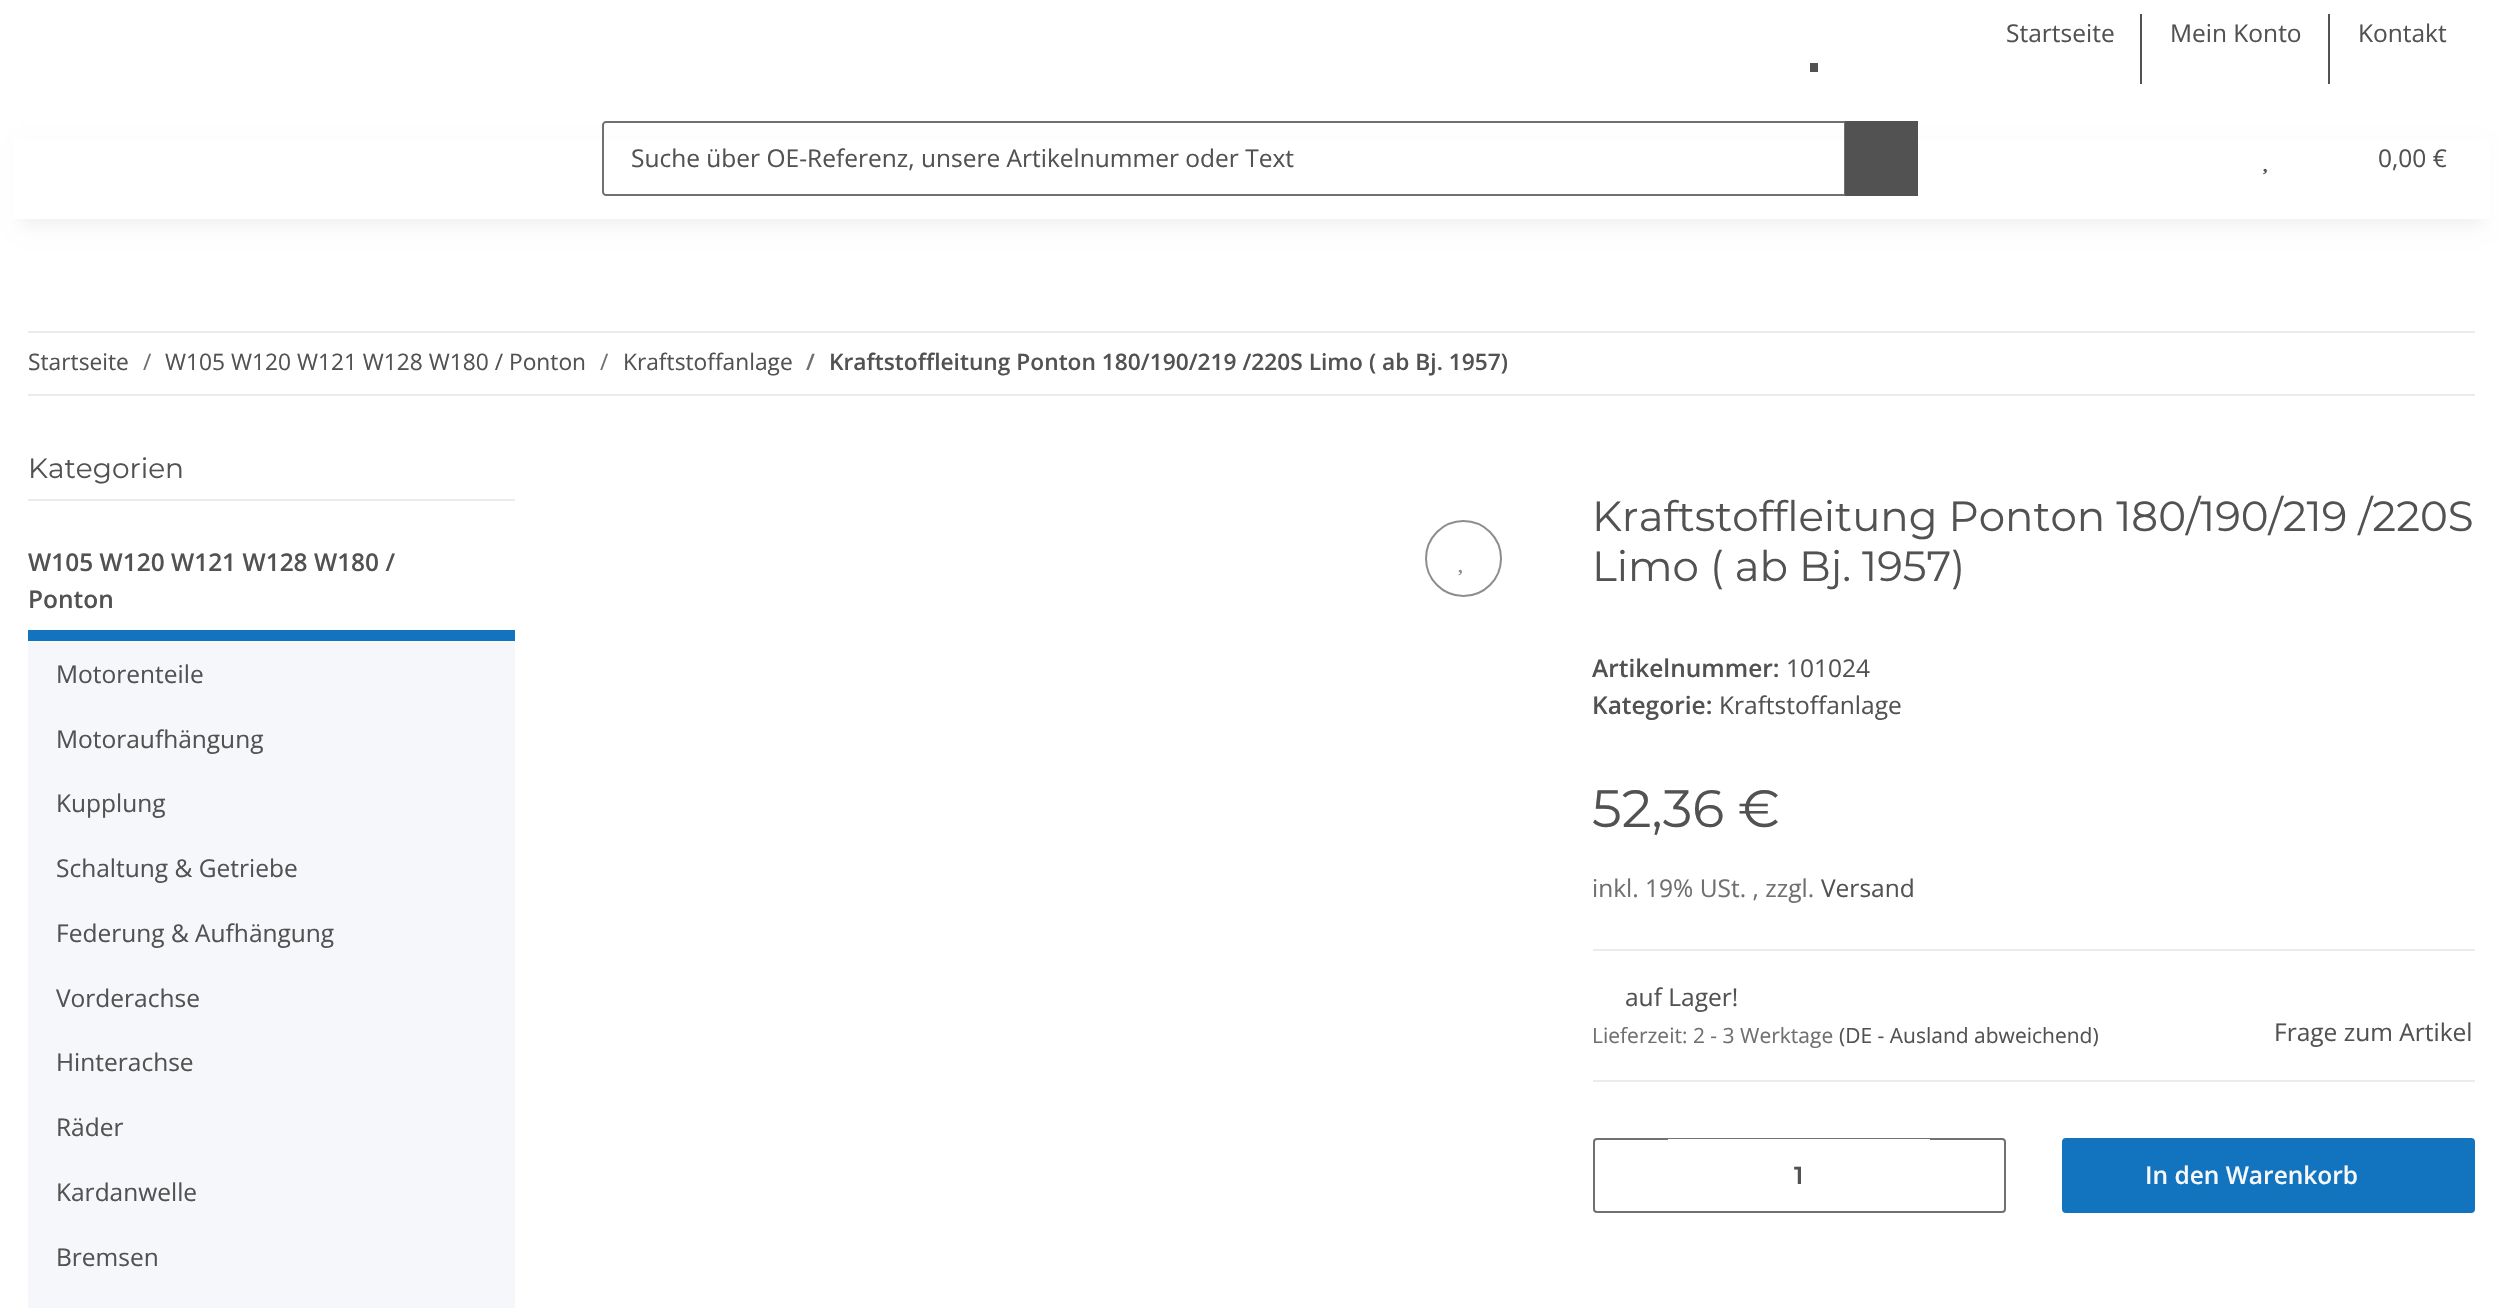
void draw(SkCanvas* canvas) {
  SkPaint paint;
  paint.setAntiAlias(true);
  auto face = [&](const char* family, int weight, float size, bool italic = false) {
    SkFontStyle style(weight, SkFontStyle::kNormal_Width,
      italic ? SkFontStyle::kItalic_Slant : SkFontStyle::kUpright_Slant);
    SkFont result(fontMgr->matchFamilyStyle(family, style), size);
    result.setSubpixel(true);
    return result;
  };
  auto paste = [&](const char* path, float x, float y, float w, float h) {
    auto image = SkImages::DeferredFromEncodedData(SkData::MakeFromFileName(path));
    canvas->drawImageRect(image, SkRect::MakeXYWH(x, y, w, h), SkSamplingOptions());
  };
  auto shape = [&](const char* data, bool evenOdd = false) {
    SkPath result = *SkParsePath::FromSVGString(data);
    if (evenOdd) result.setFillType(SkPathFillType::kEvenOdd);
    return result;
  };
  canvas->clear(0xffffffff);
  {
    const struct { float x, y, w, h; SkColor color; } items[] = {
      {2140, 14, 2, 70, 0xff525252},
      {2328, 14, 2, 70, 0xff525252},
      {1810, 63, 8, 9, 0xff525252},
    };
    for (auto [x, y, w, h, color] : items) {
      paint.setColor(color);
      canvas->drawRect(SkRect::MakeXYWH(x, y, w, h), paint);
    }
  }
  paint.setColor(0x0f000000);
  paint.setMaskFilter(SkMaskFilter::MakeBlur(kNormal_SkBlurStyle, 8));
  canvas->drawRect(SkRect::MakeXYWH(21, 147, 2461, 79), paint);
  paint.setMaskFilter(nullptr);
  paint.setColor(0xffffffff);
  canvas->drawRect(SkRect::MakeXYWH(13, 139, 2477, 80), paint);
  paint.setStroke(true);
  paint.setStrokeWidth(2);
  paint.setColor(0xff707070);
  canvas->drawPath(shape("M606 122H1845V195H606C604.5 195 603 193.5 603 192V125C603 123.5 604.5 122 606 122Z"), paint);
  paint.setStroke(false);
  paint.setColor(0xff525252);
  canvas->drawRect(SkRect::MakeXYWH(1845, 121, 73, 75), paint);
  paste("img/1.png", 2263, 168, 4, 7);
  {
    const struct { float x, y, w, h; SkColor color; } items[] = {
      {28, 331, 2447, 2, 0xffebebeb},
      {28, 394, 2447, 2, 0xffebebeb},
      {28, 499, 487, 2, 0xffebebeb},
      {28, 630, 487, 11, 0xff1274be},
      {28, 641, 487, 667, 0xfff5f7fa},
    };
    for (auto [x, y, w, h, color] : items) {
      paint.setColor(color);
      canvas->drawRect(SkRect::MakeXYWH(x, y, w, h), paint);
    }
  }
  paint.setStroke(true);
  paint.setColor(0xff8d8d8d);
  canvas->drawCircle(1463.5f, 558.5f, 37.5f, paint);
  paste("img/2.png", 1458, 569, 4, 7);
  paint.setStroke(false);
  paint.setColor(0xffebebeb);
  canvas->drawRect(SkRect::MakeXYWH(1593, 949, 882, 2), paint);
  canvas->drawRect(SkRect::MakeXYWH(1593, 1080, 882, 2), paint);
  paint.setStroke(true);
  paint.setColor(0xff707070);
  canvas->drawRoundRect(SkRect::MakeXYWH(1594, 1139, 411, 73), 3, 3, paint);
  paint.setStroke(false);
  paint.setColor(0xffffffff);
  canvas->drawRect(SkRect::MakeXYWH(1668, 1139, 262, 1), paint);
  paint.setColor(0xff1274be);
  canvas->drawRoundRect(SkRect::MakeXYWH(2063, 1139, 411, 73), 3, 3, paint);
  paint.setStroke(true);
  canvas->drawRoundRect(SkRect::MakeXYWH(2063, 1139, 411, 73), 3, 3, paint);
  auto f0 = face("Open Sans", 400, 24.5f);
  paint.setStroke(false);
  paint.setColor(0xff525252);
  {
    const struct { const char* s; float x, y; } items[] = {
      {"Startseite", 2006, 42},
      {"Mein Konto", 2170, 42},
      {"Kontakt", 2358, 42},
      {"Suche über OE-Referenz, unsere Artikelnummer oder Text", 631, 167},
      {"0,00 €", 2378, 167},
    };
    for (auto [s, x, y] : items) {
      canvas->drawString(s, x, y, f0, paint);
    }
  }
  auto f1 = face("Open Sans", 400, 22.75f);
  canvas->drawString("Startseite", 28, 370, f1, paint);
  paint.setColor(0xff707070);
  canvas->drawString("/", 143, 370, f1, paint);
  paint.setColor(0xff525252);
  canvas->drawString("W105 W120 W121 W128 W180 / Ponton", 165, 370, f1, paint);
  paint.setColor(0xff707070);
  canvas->drawString("/", 600, 370, f1, paint);
  paint.setColor(0xff525252);
  canvas->drawString("Kraftstoffanlage", 623, 370, f1, paint);
  auto f2 = face("Open Sans", 600, 22.75f);
  paint.setColor(0xff707070);
  canvas->drawString("/", 806, 370, f2, paint);
  paint.setColor(0xff525252);
  canvas->drawString("Kraftstoffleitung Ponton 180/190/219 /220S Limo ( ab Bj. 1957)", 829, 370, f2, paint);
  auto f3 = face("Montserrat", 400, 28);
  canvas->drawString("Kategorien", 28, 478, f3, paint);
  auto f4 = face("Open Sans", 600, 24.5f);
  canvas->drawString("W105 W120 W121 W128 W180 /", 28, 571, f4, paint);
  canvas->drawString("Ponton", 28, 608, f4, paint);
  {
    const struct { const char* s; float x, y; } items[] = {
      {"Motorenteile", 56, 683},
      {"Motoraufhängung", 56, 748},
      {"Kupplung", 56, 812},
      {"Schaltung & Getriebe", 56, 877},
      {"Federung & Aufhängung", 56, 942},
      {"Vorderachse", 56, 1007},
      {"Hinterachse", 56, 1071},
      {"Räder", 56, 1136},
      {"Kardanwelle", 56, 1201},
      {"Bremsen", 56, 1266},
    };
    for (auto [s, x, y] : items) {
      canvas->drawString(s, x, y, f0, paint);
    }
  }
  auto f5 = face("Montserrat", 400, 42);
  canvas->drawString("Kraftstoffleitung Ponton 180/190/219 /220S", 1592, 531, f5, paint);
  canvas->drawString("Limo ( ab Bj. 1957)", 1592, 581, f5, paint);
  canvas->drawString("Artikelnummer:", 1592, 677, f4, paint);
  canvas->drawString("101024", 1786, 677, f0, paint);
  canvas->drawString("Kategorie:", 1592, 714, f4, paint);
  canvas->drawString("Kraftstoffanlage", 1719, 714, f0, paint);
  auto f6 = face("Montserrat", 400, 52.5f);
  canvas->drawString("52,36 €", 1592, 827, f6, paint);
  paint.setColor(0xff707070);
  canvas->drawString("inkl. 19% USt. , zzgl.", 1592, 897, f0, paint);
  paint.setColor(0xff525252);
  canvas->drawString("Versand", 1821, 897, f0, paint);
  canvas->drawString("auf Lager!", 1625, 1006, f0, paint);
  auto f7 = face("Open Sans", 400, 21);
  paint.setColor(0xff707070);
  canvas->drawString("Lieferzeit: 2 - 3 Werktage", 1592, 1043, f7, paint);
  paint.setColor(0xff525252);
  canvas->drawString("(DE - Ausland abweichend)", 1839, 1043, f7, paint);
  canvas->drawString("Frage zum Artikel", 2274, 1041, f0, paint);
  auto f8 = face("Montserrat", 600, 24.5f);
  canvas->drawString("1", 1794, 1184, f8, paint);
  paint.setColor(0xfff5f7fa);
  canvas->drawString("In den Warenkorb", 2145, 1184, f4, paint);
}
